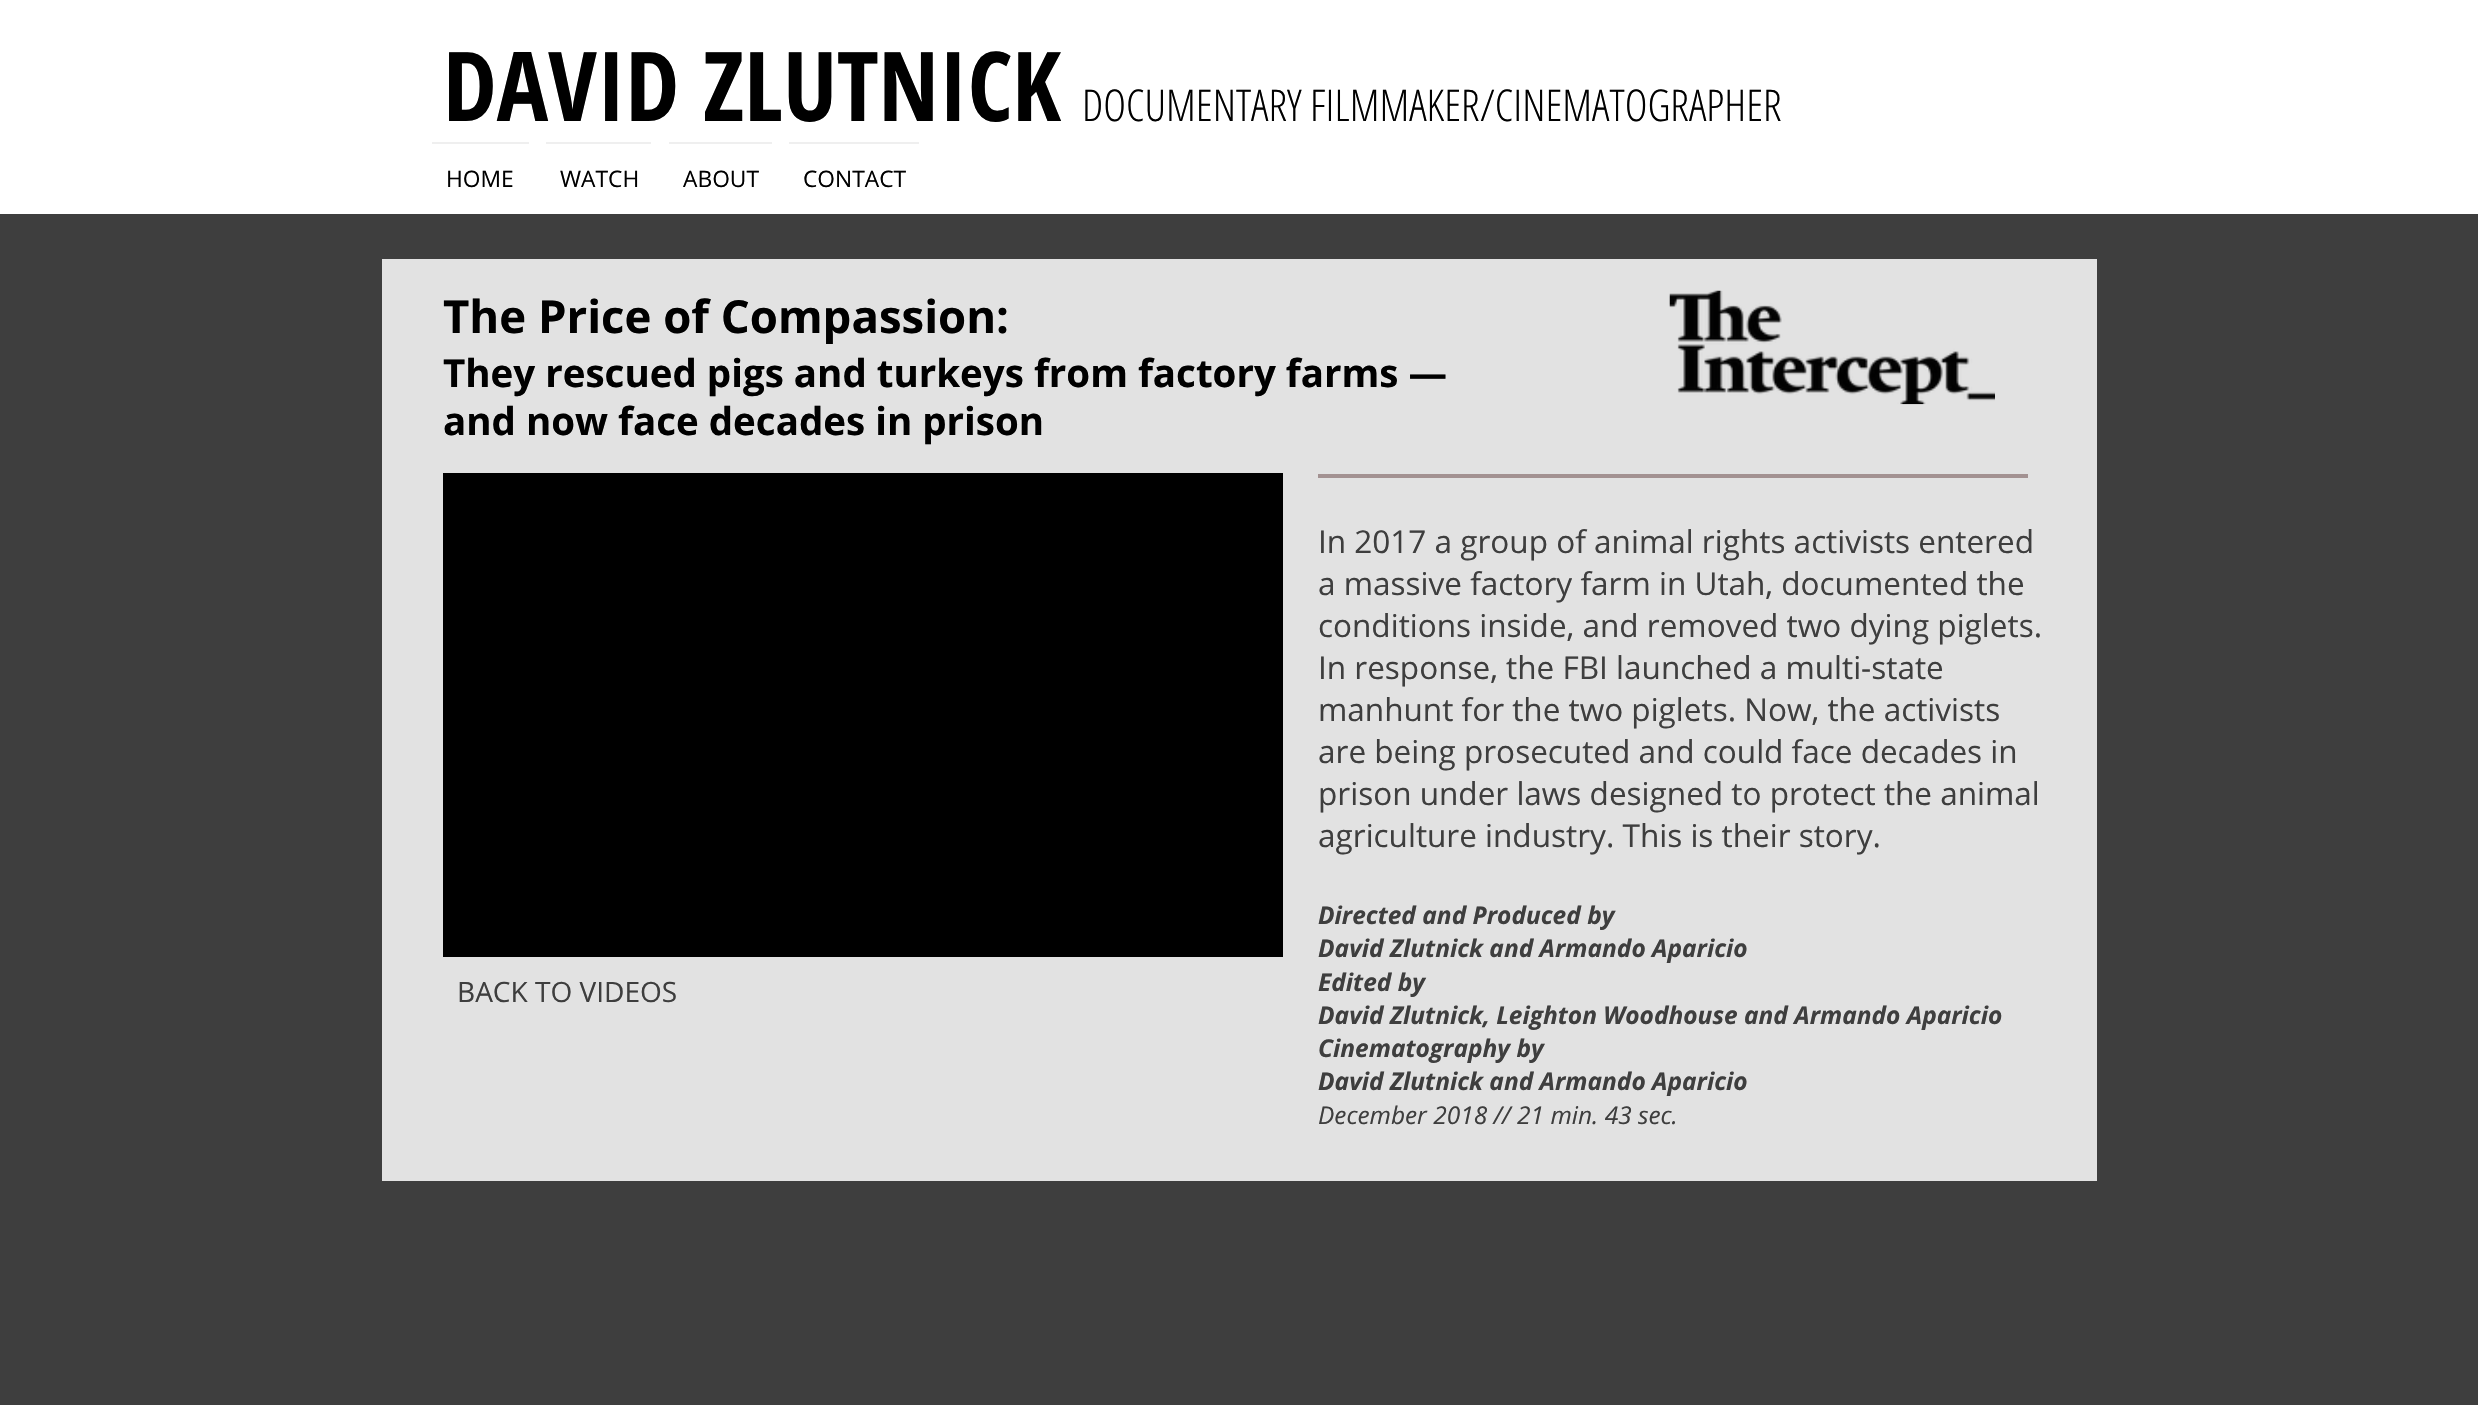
void draw(SkCanvas* canvas) {
  SkPaint paint;
  paint.setAntiAlias(true);
  auto face = [&](const char* family, int weight, float size, bool italic = false) {
    SkFontStyle style(weight, SkFontStyle::kNormal_Width,
      italic ? SkFontStyle::kItalic_Slant : SkFontStyle::kUpright_Slant);
    SkFont result(fontMgr->matchFamilyStyle(family, style), size);
    result.setSubpixel(true);
    return result;
  };
  auto paste = [&](const char* path, float x, float y, float w, float h) {
    auto image = SkImages::DeferredFromEncodedData(SkData::MakeFromFileName(path));
    canvas->drawImageRect(image, SkRect::MakeXYWH(x, y, w, h), SkSamplingOptions());
  };
  canvas->clear(0xff3e3e3e);
  {
    const struct { float x, y, w, h; SkColor color; } items[] = {
      {0, 0, 2478, 214, 0xffffffff},
      {432, 142, 97, 2, 0xffefefef},
      {546, 142, 105, 2, 0xffefefef},
      {669, 142, 103, 2, 0xffefefef},
      {789, 142, 130, 2, 0xffefefef},
      {382, 259, 1715, 922, 0xffe2e2e2},
    };
    for (auto [x, y, w, h, color] : items) {
      paint.setColor(color);
      canvas->drawRect(SkRect::MakeXYWH(x, y, w, h), paint);
    }
  }
  paste("img/1.png", 1669, 290, 326, 115);
  paint.setColor(0xff000000);
  canvas->drawRect(SkRect::MakeXYWH(443, 473, 840, 484), paint);
  paint.setColor(0xffa39292);
  canvas->drawRect(SkRect::MakeXYWH(1318, 474, 710, 4), paint);
  auto f0 = face("Open Sans Condensed", 700, 96.25f);
  paint.setColor(0xff000000);
  canvas->drawString("DAVID ZLUTNICK", 443, 121, f0, paint);
  auto f1 = face("Open Sans Condensed", 300, 43.75f);
  canvas->drawString("DOCUMENTARY FILMMAKER/CINEMATOGRAPHER", 1082, 121, f1, paint);
  auto f2 = face("Open Sans", 400, 22.75f);
  {
    const struct { const char* s; float x, y; } items[] = {
      {"HOME", 446, 187},
      {"WATCH", 560, 187},
      {"ABOUT", 683, 187},
      {"CONTACT", 803, 187},
    };
    for (auto [s, x, y] : items) {
      canvas->drawString(s, x, y, f2, paint);
    }
  }
  auto f3 = face("Open Sans", 700, 45.5f);
  canvas->drawString("The Price of Compassion:", 443, 333, f3, paint);
  auto f4 = face("Open Sans", 700, 38.5f);
  canvas->drawString("They rescued pigs and turkeys from factory farms —", 443, 387, f4, paint);
  canvas->drawString("and now face decades in prison", 443, 435, f4, paint);
  auto f5 = face("Open Sans", 400, 28);
  paint.setColor(0xff3e3e3e);
  canvas->drawString("BACK TO VIDEOS", 457, 1002, f5, paint);
  auto f6 = face("Open Sans", 400, 31.5f);
  {
    const struct { const char* s; float x, y; } items[] = {
      {"In 2017 a group of animal rights activists entered", 1318, 553},
      {"a massive factory farm in Utah, documented the", 1318, 595},
      {"conditions inside, and removed two dying piglets.", 1318, 637},
      {"In response, the FBI launched a multi-state", 1318, 679},
      {"manhunt for the two piglets. Now, the activists", 1318, 721},
      {"are being prosecuted and could face decades in", 1318, 763},
      {"prison under laws designed to protect the animal", 1318, 805},
      {"agriculture industry. This is their story.", 1318, 847},
    };
    for (auto [s, x, y] : items) {
      canvas->drawString(s, x, y, f6, paint);
    }
  }
  auto f7 = face("Open Sans", 700, 24.5f, true);
  {
    const struct { const char* s; float x, y; } items[] = {
      {"Directed and Produced by", 1318, 924},
      {"David Zlutnick and Armando Aparicio", 1318, 957},
      {"Edited by", 1318, 991},
      {"David Zlutnick, Leighton Woodhouse and Armando Aparicio", 1318, 1024},
      {"Cinematography by", 1318, 1057},
      {"David Zlutnick and Armando Aparicio", 1318, 1090},
    };
    for (auto [s, x, y] : items) {
      canvas->drawString(s, x, y, f7, paint);
    }
  }
  auto f8 = face("Open Sans", 400, 24.5f, true);
  canvas->drawString("December 2018 // 21 min. 43 sec.", 1318, 1124, f8, paint);
}
